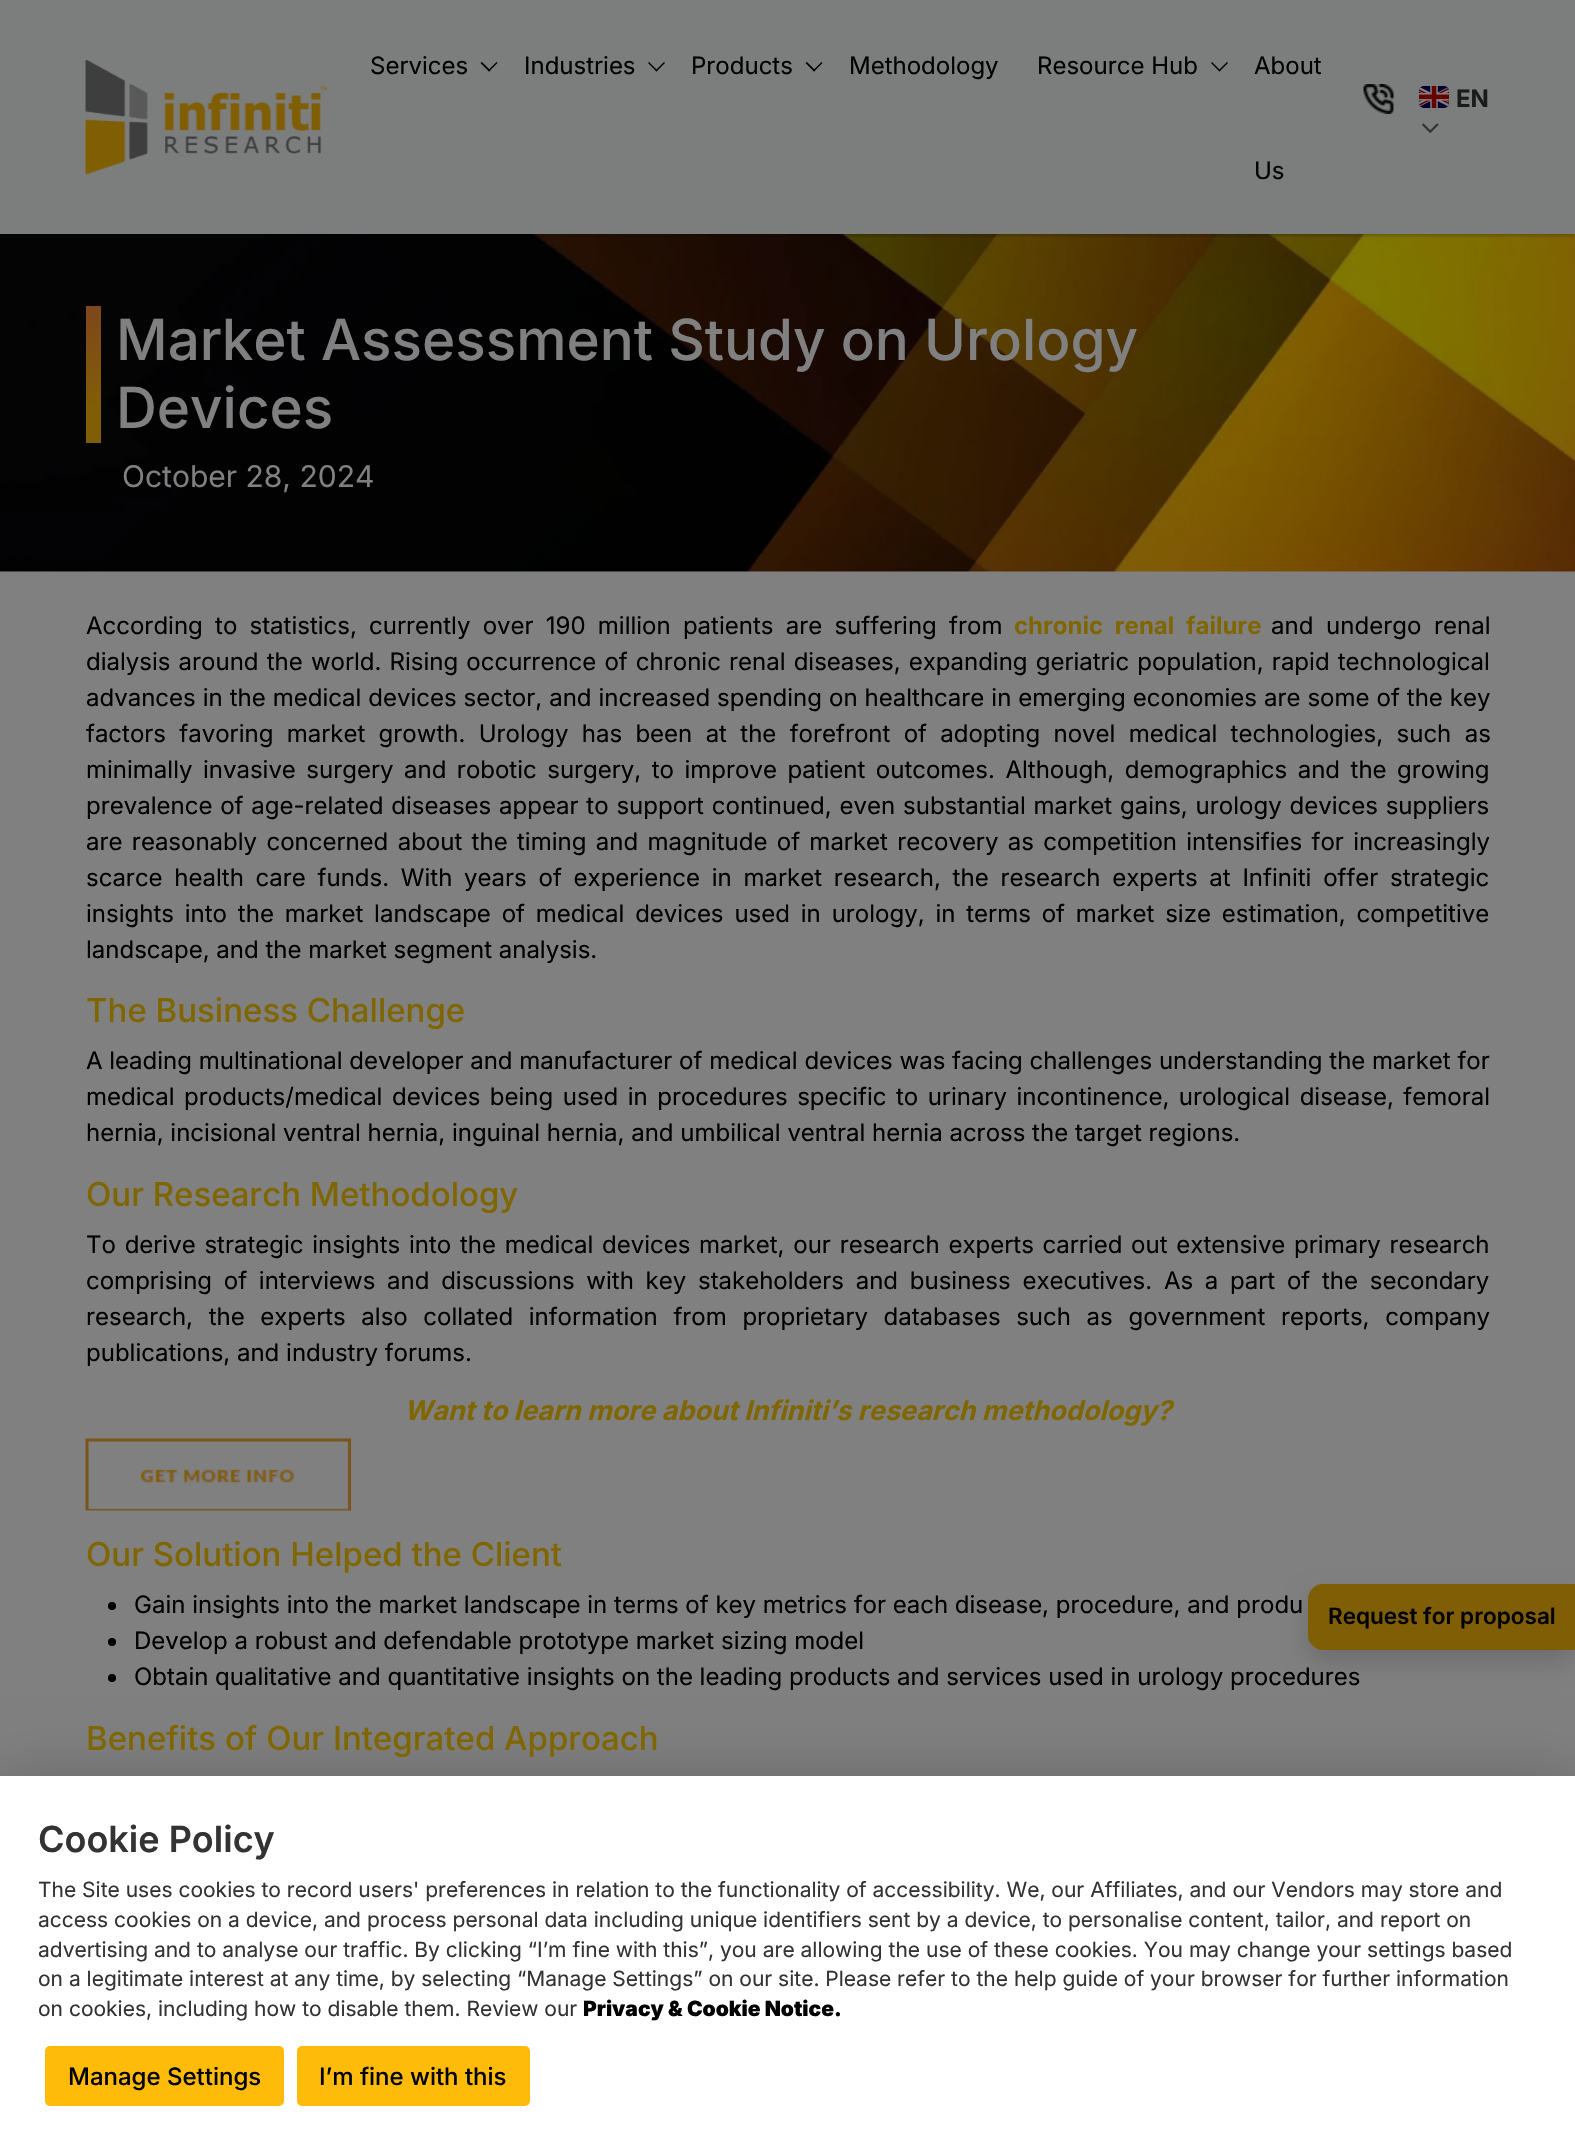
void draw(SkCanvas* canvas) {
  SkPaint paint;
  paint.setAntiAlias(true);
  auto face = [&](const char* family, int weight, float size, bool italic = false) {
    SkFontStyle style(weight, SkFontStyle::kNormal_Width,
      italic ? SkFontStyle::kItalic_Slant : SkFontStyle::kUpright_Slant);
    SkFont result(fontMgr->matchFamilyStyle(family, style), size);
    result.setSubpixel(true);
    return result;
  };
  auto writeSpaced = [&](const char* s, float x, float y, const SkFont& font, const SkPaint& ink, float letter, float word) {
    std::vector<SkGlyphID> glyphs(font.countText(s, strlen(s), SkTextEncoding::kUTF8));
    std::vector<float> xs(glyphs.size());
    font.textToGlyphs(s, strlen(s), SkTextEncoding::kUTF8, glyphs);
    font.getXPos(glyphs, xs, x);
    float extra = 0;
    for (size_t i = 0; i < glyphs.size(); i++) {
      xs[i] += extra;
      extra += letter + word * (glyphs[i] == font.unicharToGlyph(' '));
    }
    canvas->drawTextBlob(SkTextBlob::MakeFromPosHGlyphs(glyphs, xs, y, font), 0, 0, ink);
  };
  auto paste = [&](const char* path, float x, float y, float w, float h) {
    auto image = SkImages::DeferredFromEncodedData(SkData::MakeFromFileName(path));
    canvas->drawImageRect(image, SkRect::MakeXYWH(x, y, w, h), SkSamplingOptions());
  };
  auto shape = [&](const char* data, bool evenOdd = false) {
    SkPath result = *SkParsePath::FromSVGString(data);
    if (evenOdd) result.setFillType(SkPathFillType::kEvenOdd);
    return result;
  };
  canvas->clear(0xff808080);
  paint.setColor(0xff7c7d7d);
  canvas->drawRect(SkRect::MakeXYWH(0, 0, 1575, 234), paint);
  paste("img/5.png", 0, 234, 1575, 338);
  canvas->save();
  canvas->clipRect(SkRect::MakeXYWH(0, 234, 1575, 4));
  paint.setColor(0x33000000);
  paint.setMaskFilter(SkMaskFilter::MakeBlur(kNormal_SkBlurStyle, 1.5f));
  canvas->drawRect(SkRect::MakeXYWH(0, 2, 1575, 234), paint);
  paint.setMaskFilter(nullptr);
  canvas->restore();
  paste("img/1.png", 85, 60, 242, 114);
  paint.setColor(0xff000000);
  canvas->drawPath(shape("M496.5 62L497.5 63L489 71.5L488 70.5Z"), paint);
  canvas->drawPath(shape("M482 62L490.5 70.5L489 71.5L480.5 63Z"), paint);
  canvas->drawPath(shape("M664 62L665 63L656.5 71.5L655.5 70.5Z"), paint);
  canvas->drawPath(shape("M649 62L657.5 70.5L656.5 71.5L648 63Z"), paint);
  canvas->drawPath(shape("M821.5 62L822.5 63L814 71.5L813 70.5Z"), paint);
  canvas->drawPath(shape("M807 62L815.5 70.5L814 71.5L805.5 63Z"), paint);
  canvas->drawPath(shape("M1227 62L1228 63L1219.5 71.5L1218.5 70.5Z"), paint);
  canvas->drawPath(shape("M1212 62L1220.5 70.5L1219.5 71.5L1211 63Z"), paint);
  paste("img/2.png", 1363, 84, 31, 30);
  paste("img/3.png", 1419, 86, 30, 22);
  paste("img/4.png", 1422, 123, 17, 10);
  {
    const SkColor colors[] = {0xff7f451d, 0xff805e05};
    const float stops[] = {0, 0.74f};
    const SkPoint ends[] = {{60, 323}, {126, 426}};
    paint.setShader(SkGradientShader::MakeLinear(ends, colors, stops, 2, SkTileMode::kClamp));
    paint.setAlpha(255);
  }
  canvas->drawRect(SkRect::MakeXYWH(86, 306, 15, 137), paint);
  paste("img/6.png", 85, 1438, 266, 73);
  paint.setShader(nullptr);
  paint.setColor(0xff000000);
  canvas->drawCircle(112, 1606, 4, paint);
  canvas->drawCircle(112, 1642, 4, paint);
  canvas->drawCircle(112, 1678, 4, paint);
  paint.setColor(0x26000000);
  paint.setMaskFilter(SkMaskFilter::MakeBlur(kNormal_SkBlurStyle, 12));
  canvas->drawRoundRect(SkRect::MakeXYWH(1308, 1596, 267, 66), 15, 15, paint);
  paint.setMaskFilter(nullptr);
  paint.setColor(0xff805e05);
  canvas->drawPath(shape("M1323 1585H1574V1649H1323C1315.5 1649 1309 1642.5 1309 1635V1599C1309 1591.5 1315.5 1585 1323 1585Z"), paint);
  paint.setStroke(true);
  paint.setStrokeWidth(2);
  canvas->drawPath(shape("M1323 1585H1574V1649H1323C1315.5 1649 1309 1642.5 1309 1635V1599C1309 1591.5 1315.5 1585 1323 1585Z"), paint);
  paint.setStroke(false);
  paint.setColor(0x40000000);
  paint.setMaskFilter(SkMaskFilter::MakeBlur(kNormal_SkBlurStyle, 30));
  canvas->drawRect(SkRect::MakeXYWH(0, 1784, 1575, 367), paint);
  paint.setMaskFilter(nullptr);
  paint.setColor(0xffffffff);
  canvas->drawRect(SkRect::MakeXYWH(0, 1776, 1575, 367), paint);
  paint.setColor(0xffffbb09);
  canvas->drawRoundRect(SkRect::MakeXYWH(45, 2046, 239, 60), 5, 5, paint);
  canvas->drawRoundRect(SkRect::MakeXYWH(297, 2046, 233, 60), 5, 5, paint);
  auto f0 = face("Inter", 400, 24);
  paint.setColor(0xff000000);
  {
    const struct { const char* s; float x, y; } items[] = {
      {"Services", 370, 74},
      {"Industries", 524, 74},
      {"Products", 691, 74},
      {"Methodology", 849, 74},
      {"Resource Hub", 1037, 74},
      {"About", 1254, 74},
      {"Us", 1254, 179},
    };
    for (auto [s, x, y] : items) {
      canvas->drawString(s, x, y, f0, paint);
    }
  }
  auto f1 = face("Inter", 700, 24);
  paint.setColor(0xff1a1a1a);
  canvas->drawString("EN", 1456, 107, f1, paint);
  auto f2 = face("Inter", 500, 56.6f);
  paint.setColor(0xff808080);
  canvas->drawString("Market Assessment Study on Urology", 116, 360, f2, paint);
  canvas->drawString("Devices", 116, 428, f2, paint);
  auto f3 = face("Inter", 400, 30);
  canvas->drawString("October 28, 2024", 122, 487, f3, paint);
  paint.setColor(0xff000000);
  writeSpaced("According to statistics, currently over 190 million patients are suffering from", 86, 634, f0, paint, 0, 5.5f);
  paint.setColor(0xff806600);
  writeSpaced("chronic renal failure", 1014, 634, f1, paint, 0, 6);
  paint.setColor(0xff000000);
  writeSpaced("and undergo renal", 1271, 634, f0, paint, 0, 6);
  writeSpaced("dialysis around the world. Rising occurrence of chronic renal diseases, expanding geriatric population, rapid technological", 86, 670, f0, paint, 0, 1.4f);
  writeSpaced("advances in the medical devices sector, and increased spending on healthcare in emerging economies are some of the key", 86, 706, f0, paint, 0, 0.25f);
  writeSpaced("factors favoring market growth. Urology has been at the forefront of adopting novel medical technologies, such as", 86, 742, f0, paint, 0, 6.6f);
  writeSpaced("minimally invasive surgery and robotic surgery, to improve patient outcomes. Although, demographics and the growing", 86, 778, f0, paint, 0, 3.75f);
  writeSpaced("prevalence of age-related diseases appear to support continued, even substantial market gains, urology devices suppliers", 86, 814, f0, paint, 0, 1.1f);
  writeSpaced("are reasonably concerned about the timing and magnitude of market recovery as competition intensifies for increasingly", 86, 850, f0, paint, 0, 2.6f);
  writeSpaced("scarce health care funds. With years of experience in market research, the research experts at Infiniti offer strategic", 86, 886, f0, paint, 0, 5);
  writeSpaced("insights into the market landscape of medical devices used in urology, in terms of market size estimation, competitive", 86, 922, f0, paint, 0, 4.1f);
  canvas->drawString("landscape, and the market segment analysis.", 86, 958, f0, paint);
  auto f4 = face("Inter", 500, 33);
  paint.setColor(0xff806600);
  canvas->drawString("The Business Challenge", 86, 1022, f4, paint);
  paint.setColor(0xff000000);
  canvas->drawString("A leading multinational developer and manufacturer of medical devices was facing challenges understanding the market for", 86, 1069, f0, paint);
  writeSpaced("medical products/medical devices being used in procedures specific to urinary incontinence, urological disease, femoral", 86, 1105, f0, paint, 0, 2.75f);
  canvas->drawString("hernia, incisional ventral hernia, inguinal hernia, and umbilical ventral hernia across the target regions.", 86, 1141, f0, paint);
  paint.setColor(0xff806600);
  canvas->drawString("Our Research Methodology", 86, 1206, f4, paint);
  paint.setColor(0xff000000);
  writeSpaced("To derive strategic insights into the medical devices market, our research experts carried out extensive primary research", 86, 1253, f0, paint, 0, 2);
  writeSpaced("comprising of interviews and discussions with key stakeholders and business executives. As a part of the secondary", 86, 1289, f0, paint, 0, 5);
  writeSpaced("research, the experts also collated information from proprietary databases such as government reports, company", 86, 1325, f0, paint, 0, 8.9f);
  canvas->drawString("publications, and industry forums.", 86, 1361, f0, paint);
  auto f5 = face("Inter", 700, 27, true);
  paint.setColor(0xff806600);
  canvas->drawString("Want to learn more about Infiniti’s research methodology?", 404, 1420, f5, paint);
  canvas->drawString("Our Solution Helped the Client", 86, 1566, f4, paint);
  paint.setColor(0xff000000);
  {
    const struct { const char* s; float x, y; } items[] = {
      {"Gain insights into the market landscape in terms of key metrics for each disease, procedure, and produ", 134, 1613},
      {"Develop a robust and defendable prototype market sizing model", 134, 1649},
      {"Obtain qualitative and quantitative insights on the leading products and services used in urology procedures", 134, 1685},
    };
    for (auto [s, x, y] : items) {
      canvas->drawString(s, x, y, f0, paint);
    }
  }
  paint.setColor(0xff806600);
  canvas->drawString("Benefits of Our Integrated Approach", 86, 1750, f4, paint);
  auto f6 = face("Inter", 600, 22.5f);
  paint.setColor(0xff000000);
  canvas->drawString("Request for proposal", 1328, 1624, f6, paint);
  auto f7 = face("Inter", 600, 36);
  paint.setColor(0xff333333);
  canvas->drawString("Cookie Policy", 38, 1852, f7, paint);
  auto f8 = face("Inter", 400, 21);
  {
    const struct { const char* s; float x, y; } items[] = {
      {"The Site uses cookies to record users' preferences in relation to the functionality of accessibility. We, our Affiliates, and our Vendors may store and", 38, 1897},
      {"access cookies on a device, and process personal data including unique identifiers sent by a device, to personalise content, tailor, and report on", 38, 1927},
      {"advertising and to analyse our traffic. By clicking “I’m fine with this”, you are allowing the use of these cookies. You may change your settings based", 38, 1957},
      {"on a legitimate interest at any time, by selecting “Manage Settings” on our site. Please refer to the help guide of your browser for further information", 38, 1986},
      {"on cookies, including how to disable them. Review our", 38, 2016},
    };
    for (auto [s, x, y] : items) {
      canvas->drawString(s, x, y, f8, paint);
    }
  }
  auto f9 = face("Inter", 900, 21);
  paint.setColor(0xff000000);
  canvas->drawString("Privacy & Cookie Notice.", 583, 2016, f9, paint);
  auto f10 = face("Inter", 500, 24);
  canvas->drawString("Manage Settings", 68, 2085, f10, paint);
  canvas->drawString("I’m fine with this", 319, 2085, f10, paint);
}
